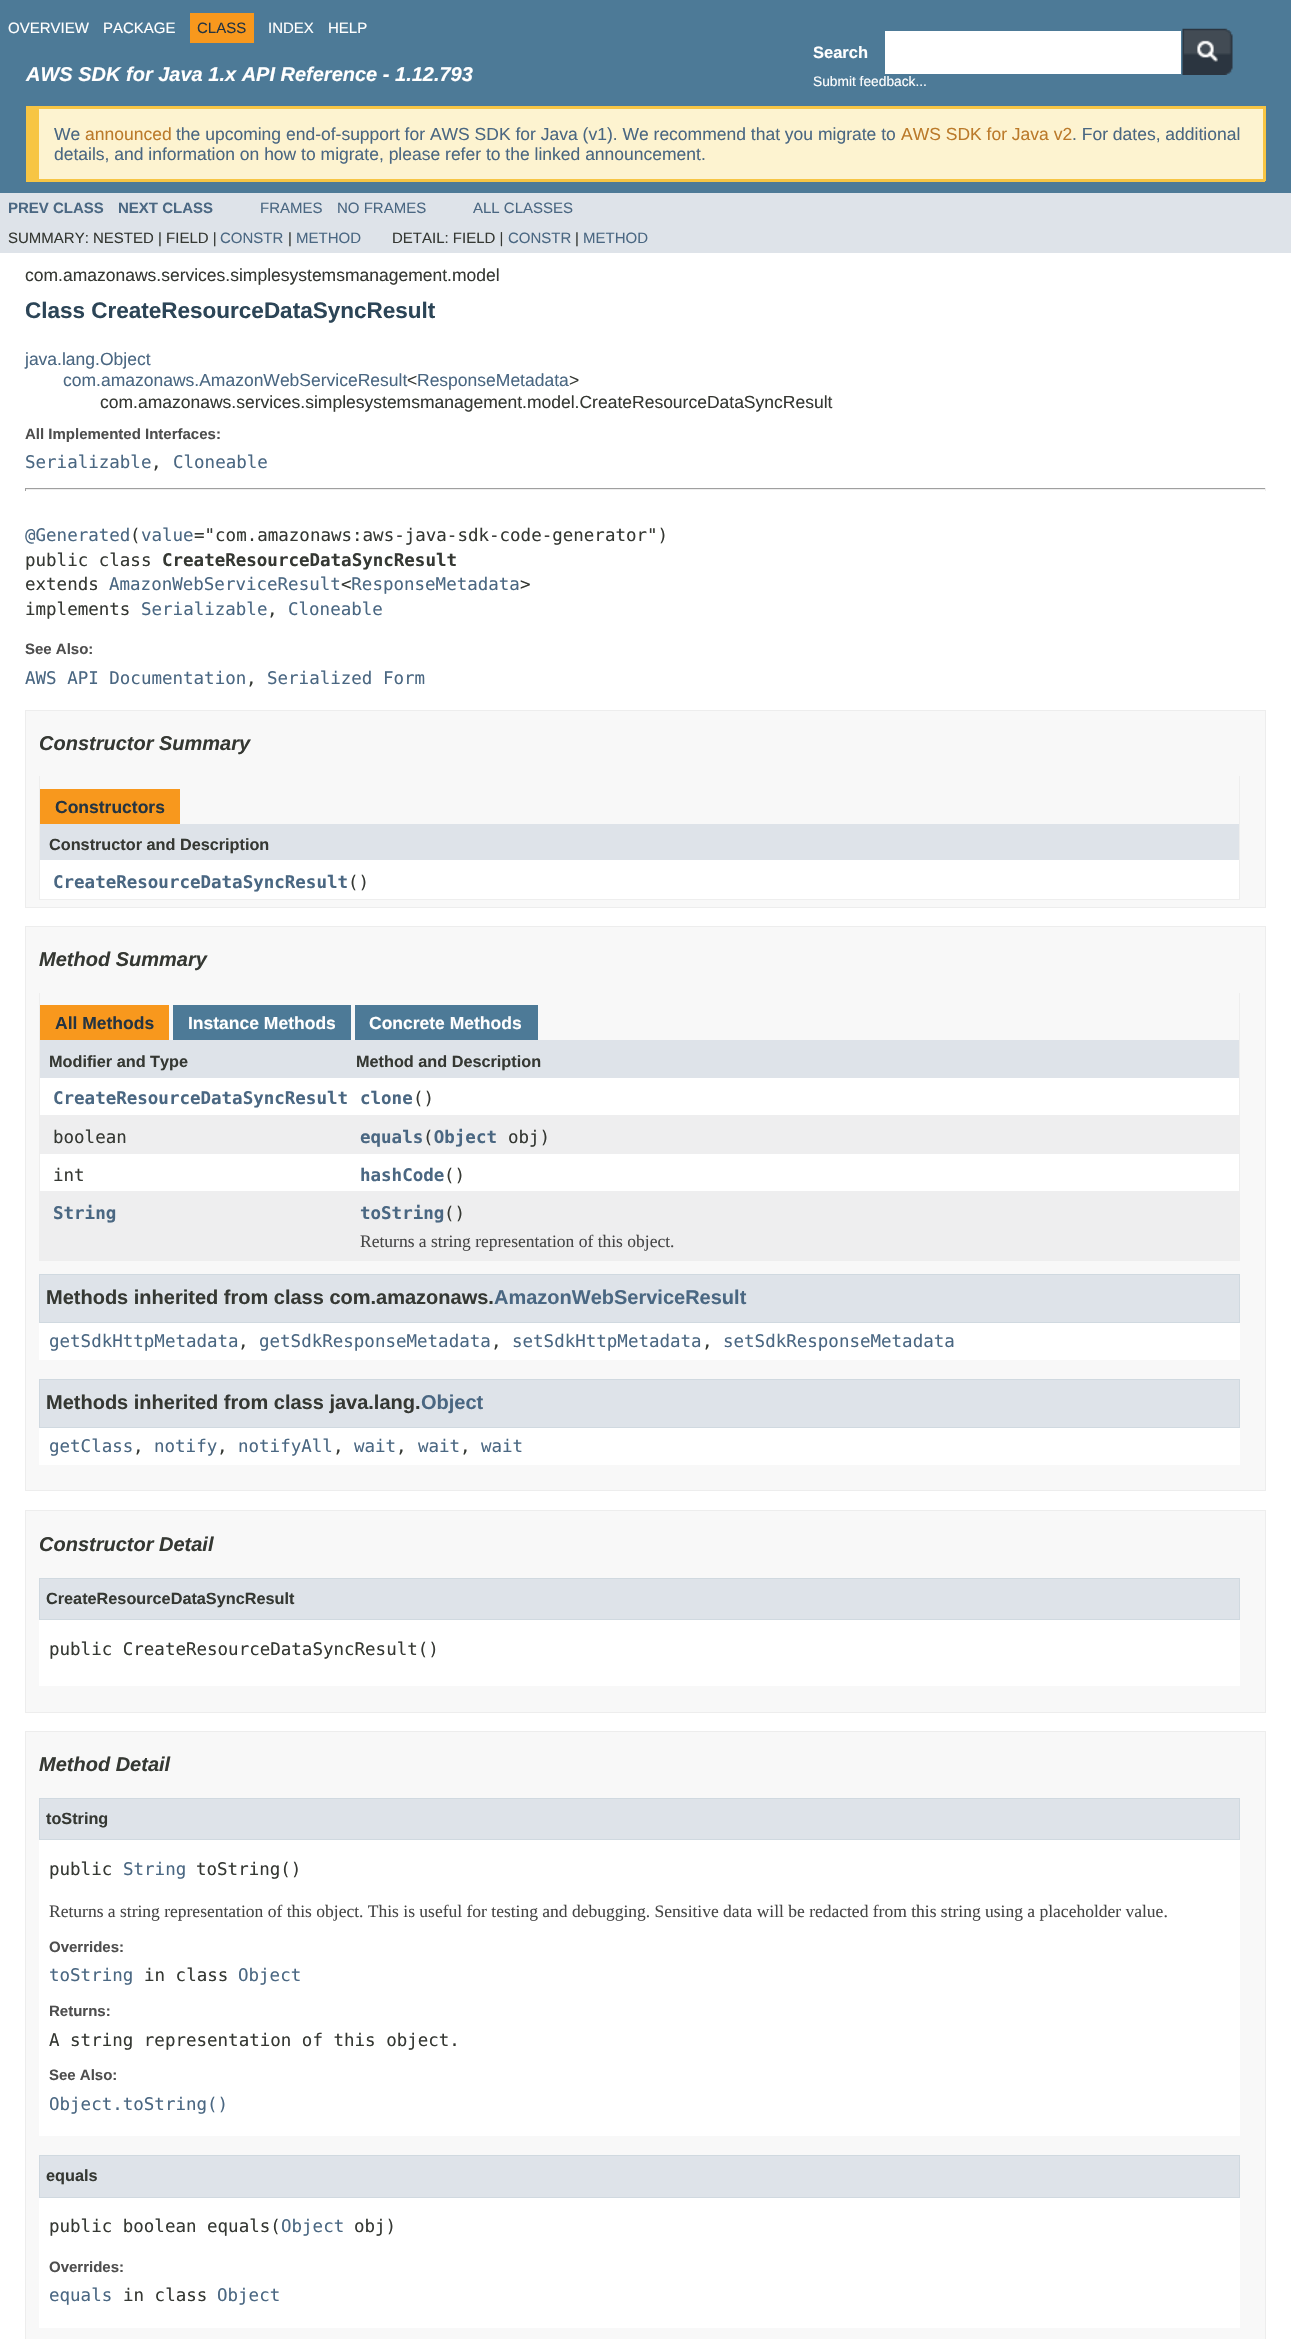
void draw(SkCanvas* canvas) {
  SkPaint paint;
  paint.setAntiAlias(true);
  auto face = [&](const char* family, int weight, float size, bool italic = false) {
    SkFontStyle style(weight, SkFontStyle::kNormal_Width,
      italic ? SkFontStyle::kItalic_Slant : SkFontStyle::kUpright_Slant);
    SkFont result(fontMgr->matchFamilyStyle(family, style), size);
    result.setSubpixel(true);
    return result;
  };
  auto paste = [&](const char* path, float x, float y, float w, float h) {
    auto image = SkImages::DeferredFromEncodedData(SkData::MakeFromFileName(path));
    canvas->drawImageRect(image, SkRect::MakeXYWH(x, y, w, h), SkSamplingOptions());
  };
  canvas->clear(0xffffffff);
  {
    const struct { float x, y, w, h; SkColor color; } items[] = {
      {0, 0, 1291, 193, 0xff4d7a97},
      {190, 13, 64, 30, 0xfff8981d},
      {885, 31, 296, 43, 0xffffffff},
    };
    for (auto [x, y, w, h, color] : items) {
      paint.setColor(color);
      canvas->drawRect(SkRect::MakeXYWH(x, y, w, h), paint);
    }
  }
  paste("img/1.png", 1182, 28, 51, 47);
  {
    const struct { float x, y, w, h; SkColor color; } items[] = {
      {39, 109, 1224, 70, 0xfffdf3d0},
      {39, 106, 1226, 3, 0xfff7c544},
      {1263, 106, 3, 75, 0xfff7c544},
      {26, 179, 1239, 3, 0xfff7c544},
      {26, 106, 13, 73, 0xfff7c544},
      {0, 193, 1291, 60, 0xffdee3e9},
      {25, 488, 1241, 1, 0xff9f9f9f},
      {1265, 488, 1, 3, 0xffeeeeee},
      {25, 489, 1241, 1, 0xffeeeeee},
      {25, 488, 1, 3, 0xff9f9f9f},
    };
    for (auto [x, y, w, h, color] : items) {
      paint.setColor(color);
      canvas->drawRect(SkRect::MakeXYWH(x, y, w, h), paint);
    }
  }
  paint.setColor(0xfff8f8f8);
  canvas->drawRect(SkRect::MakeXYWH(25.5f, 710.5f, 1240, 197), paint);
  paint.setStroke(true);
  paint.setStrokeWidth(1);
  paint.setColor(0xffededed);
  canvas->drawRect(SkRect::MakeXYWH(25.5f, 710.5f, 1240, 197), paint);
  paint.setStroke(false);
  {
    const struct { float x, y, w, h; SkColor color; } items[] = {
      {1239, 776, 1, 124, 0xffeeeeee},
      {39, 899, 1201, 1, 0xffeeeeee},
      {39, 776, 1, 124, 0xffeeeeee},
      {40, 789, 140, 35, 0xfff8981d},
      {40, 824, 1199, 36, 0xffdee3e9},
      {40, 860, 1199, 39, 0xffffffff},
    };
    for (auto [x, y, w, h, color] : items) {
      paint.setColor(color);
      canvas->drawRect(SkRect::MakeXYWH(x, y, w, h), paint);
    }
  }
  paint.setColor(0xfff8f8f8);
  canvas->drawRect(SkRect::MakeXYWH(25.5f, 926.5f, 1240, 564), paint);
  paint.setStroke(true);
  paint.setColor(0xffededed);
  canvas->drawRect(SkRect::MakeXYWH(25.5f, 926.5f, 1240, 564), paint);
  paint.setStroke(false);
  {
    const struct { float x, y, w, h; SkColor color; } items[] = {
      {1239, 993, 1, 268, 0xffeeeeee},
      {39, 1260, 1201, 1, 0xffeeeeee},
      {39, 993, 1, 268, 0xffeeeeee},
      {40, 1005, 129, 35, 0xfff8981d},
      {173, 1005, 178, 35, 0xff4d7a97},
      {355, 1005, 183, 35, 0xff4d7a97},
      {40, 1040, 1199, 38, 0xffdee3e9},
      {40, 1078, 1199, 37, 0xffffffff},
      {40, 1115, 1199, 39, 0xffeeeeef},
      {40, 1154, 1199, 37, 0xffffffff},
      {40, 1191, 1199, 69, 0xffeeeeef},
      {39, 1323, 1201, 37, 0xffffffff},
    };
    for (auto [x, y, w, h, color] : items) {
      paint.setColor(color);
      canvas->drawRect(SkRect::MakeXYWH(x, y, w, h), paint);
    }
  }
  paint.setColor(0xffdee3e9);
  canvas->drawRect(SkRect::MakeXYWH(39.5f, 1274.5f, 1200, 48), paint);
  paint.setStroke(true);
  paint.setColor(0xffd0d9e0);
  canvas->drawRect(SkRect::MakeXYWH(39.5f, 1274.5f, 1200, 48), paint);
  paint.setStroke(false);
  paint.setColor(0xffffffff);
  canvas->drawRect(SkRect::MakeXYWH(39, 1428, 1201, 37), paint);
  paint.setColor(0xffdee3e9);
  canvas->drawRect(SkRect::MakeXYWH(39.5f, 1379.5f, 1200, 48), paint);
  paint.setStroke(true);
  paint.setColor(0xffd0d9e0);
  canvas->drawRect(SkRect::MakeXYWH(39.5f, 1379.5f, 1200, 48), paint);
  paint.setStroke(false);
  paint.setColor(0xfff8f8f8);
  canvas->drawRect(SkRect::MakeXYWH(25.5f, 1510.5f, 1240, 202), paint);
  paint.setStroke(true);
  paint.setColor(0xffededed);
  canvas->drawRect(SkRect::MakeXYWH(25.5f, 1510.5f, 1240, 202), paint);
  paint.setStroke(false);
  paint.setColor(0xffffffff);
  canvas->drawRect(SkRect::MakeXYWH(39, 1620, 1201, 66), paint);
  paint.setColor(0xffdee3e9);
  canvas->drawRect(SkRect::MakeXYWH(39.5f, 1578.5f, 1200, 41), paint);
  paint.setStroke(true);
  paint.setColor(0xffd0d9e0);
  canvas->drawRect(SkRect::MakeXYWH(39.5f, 1578.5f, 1200, 41), paint);
  paint.setStroke(false);
  paint.setColor(0xfff8f8f8);
  canvas->drawRect(SkRect::MakeXYWH(25.5f, 1731.5f, 1240, 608), paint);
  paint.setStroke(true);
  paint.setColor(0xffededed);
  canvas->drawRect(SkRect::MakeXYWH(25.5f, 1731.5f, 1240, 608), paint);
  paint.setStroke(false);
  paint.setColor(0xffffffff);
  canvas->drawRect(SkRect::MakeXYWH(39, 1840, 1201, 296), paint);
  paint.setColor(0xffdee3e9);
  canvas->drawRect(SkRect::MakeXYWH(39.5f, 1798.5f, 1200, 41), paint);
  paint.setStroke(true);
  paint.setColor(0xffd0d9e0);
  canvas->drawRect(SkRect::MakeXYWH(39.5f, 1798.5f, 1200, 41), paint);
  paint.setStroke(false);
  paint.setColor(0xffffffff);
  canvas->drawRect(SkRect::MakeXYWH(39, 2198, 1201, 130), paint);
  paint.setColor(0xffdee3e9);
  canvas->drawRect(SkRect::MakeXYWH(39.5f, 2155.5f, 1200, 42), paint);
  paint.setStroke(true);
  paint.setColor(0xffd0d9e0);
  canvas->drawRect(SkRect::MakeXYWH(39.5f, 2155.5f, 1200, 42), paint);
  auto f0 = face("Liberation Sans", 400, 15);
  paint.setStroke(false);
  paint.setColor(0xffffffff);
  canvas->drawString("OVERVIEW", 8, 33, f0, paint);
  canvas->drawString("PACKAGE", 103, 33, f0, paint);
  paint.setColor(0xff253441);
  canvas->drawString("CLASS", 197, 33, f0, paint);
  paint.setColor(0xffffffff);
  canvas->drawString("INDEX", 268, 33, f0, paint);
  canvas->drawString("HELP", 328, 33, f0, paint);
  auto f1 = face("Liberation Sans", 700, 20, true);
  canvas->drawString("AWS SDK for Java 1.x API Reference - 1.12.793", 26, 81, f1, paint);
  auto f2 = face("Liberation Sans", 700, 16.5f);
  canvas->drawString("Search", 813, 58, f2, paint);
  auto f3 = face("Liberation Sans", 400, 13.75f);
  canvas->drawString("Submit feedback...", 813, 86, f3, paint);
  auto f4 = face("Liberation Sans", 400, 17.5f);
  paint.setColor(0xff4a6782);
  canvas->drawString("We", 54, 140, f4, paint);
  paint.setColor(0xffbb7a2a);
  canvas->drawString("announced", 85, 140, f4, paint);
  paint.setColor(0xff4a6782);
  canvas->drawString("the upcoming end-of-support for AWS SDK for Java (v1). We recommend that you migrate to", 176, 140, f4, paint);
  paint.setColor(0xffbb7a2a);
  canvas->drawString("AWS SDK for Java v2", 901, 140, f4, paint);
  paint.setColor(0xff4a6782);
  canvas->drawString(". For dates, additional", 1072, 140, f4, paint);
  canvas->drawString("details, and information on how to migrate, please refer to the linked announcement.", 54, 160, f4, paint);
  auto f5 = face("Liberation Sans", 700, 15);
  canvas->drawString("PREV CLASS", 8, 213, f5, paint);
  canvas->drawString("NEXT CLASS", 118, 213, f5, paint);
  {
    const struct { const char* s; float x, y; } items[] = {
      {"FRAMES", 260, 213},
      {"NO FRAMES", 337, 213},
      {"ALL CLASSES", 473, 213},
    };
    for (auto [s, x, y] : items) {
      canvas->drawString(s, x, y, f0, paint);
    }
  }
  paint.setColor(0xff353833);
  canvas->drawString("SUMMARY: NESTED | FIELD |", 8, 243, f0, paint);
  paint.setColor(0xff4a6782);
  canvas->drawString("CONSTR", 220, 243, f0, paint);
  paint.setColor(0xff353833);
  canvas->drawString("|", 288, 243, f0, paint);
  paint.setColor(0xff4a6782);
  canvas->drawString("METHOD", 296, 243, f0, paint);
  paint.setColor(0xff353833);
  canvas->drawString("DETAIL: FIELD |", 392, 243, f0, paint);
  paint.setColor(0xff4a6782);
  canvas->drawString("CONSTR", 508, 243, f0, paint);
  paint.setColor(0xff353833);
  canvas->drawString("|", 575, 243, f0, paint);
  paint.setColor(0xff4a6782);
  canvas->drawString("METHOD", 583, 243, f0, paint);
  paint.setColor(0xff353833);
  canvas->drawString("com.amazonaws.services.simplesystemsmanagement.model", 25, 281, f4, paint);
  auto f6 = face("Liberation Sans", 700, 22.5f);
  paint.setColor(0xff2c4557);
  canvas->drawString("Class CreateResourceDataSyncResult", 25, 318, f6, paint);
  paint.setColor(0xff4a6782);
  canvas->drawString("java.lang.Object", 25, 365, f4, paint);
  canvas->drawString("com.amazonaws.AmazonWebServiceResult", 63, 386, f4, paint);
  paint.setColor(0xff353833);
  canvas->drawString("<", 407, 386, f4, paint);
  paint.setColor(0xff4a6782);
  canvas->drawString("ResponseMetadata", 417, 386, f4, paint);
  paint.setColor(0xff353833);
  canvas->drawString(">", 569, 386, f4, paint);
  canvas->drawString("com.amazonaws.services.simplesystemsmanagement.model.CreateResourceDataSyncResult", 100, 408, f4, paint);
  paint.setColor(0xff4e4e4e);
  canvas->drawString("All Implemented Interfaces:", 25, 439, f5, paint);
  auto f7 = face("DejaVu Sans Mono", 400, 17.5f);
  paint.setColor(0xff4a6782);
  canvas->drawString("Serializable", 25, 468, f7, paint);
  paint.setColor(0xff353833);
  canvas->drawString(",", 151, 468, f7, paint);
  paint.setColor(0xff4a6782);
  canvas->drawString("Cloneable", 173, 468, f7, paint);
  canvas->drawString("@Generated value", 25, 541, f7, paint);
  paint.setColor(0xff353833);
  {
    const struct { const char* s; float x, y; } items[] = {
      {"(", 130, 541},
      {"=\"com.amazonaws:aws-java-sdk-code-generator\")", 194, 541},
      {"public class", 25, 566},
    };
    for (auto [s, x, y] : items) {
      canvas->drawString(s, x, y, f7, paint);
    }
  }
  auto f8 = face("DejaVu Sans Mono", 700, 17.5f);
  canvas->drawString("CreateResourceDataSyncResult", 162, 566, f8, paint);
  canvas->drawString("extends", 25, 590, f7, paint);
  paint.setColor(0xff4a6782);
  canvas->drawString("AmazonWebServiceResult ResponseMetadata", 109, 590, f7, paint);
  paint.setColor(0xff353833);
  {
    const struct { const char* s; float x, y; } items[] = {
      {"<", 341, 590},
      {">", 520, 590},
      {"implements", 25, 615},
    };
    for (auto [s, x, y] : items) {
      canvas->drawString(s, x, y, f7, paint);
    }
  }
  paint.setColor(0xff4a6782);
  canvas->drawString("Serializable", 141, 615, f7, paint);
  paint.setColor(0xff353833);
  canvas->drawString(",", 267, 615, f7, paint);
  paint.setColor(0xff4a6782);
  canvas->drawString("Cloneable", 288, 615, f7, paint);
  paint.setColor(0xff4e4e4e);
  canvas->drawString("See Also:", 25, 654, f5, paint);
  paint.setColor(0xff4a6782);
  canvas->drawString("AWS API Documentation", 25, 684, f7, paint);
  paint.setColor(0xff353833);
  canvas->drawString(",", 246, 684, f7, paint);
  paint.setColor(0xff4a6782);
  canvas->drawString("Serialized Form", 267, 684, f7, paint);
  paint.setColor(0xff353833);
  canvas->drawString("Constructor Summary", 39, 750, f1, paint);
  auto f9 = face("Liberation Sans", 700, 17.5f);
  paint.setColor(0xff253441);
  canvas->drawString("Constructors", 55, 813, f9, paint);
  auto f10 = face("Liberation Sans", 700, 16.25f);
  paint.setColor(0xff353833);
  canvas->drawString("Constructor and Description", 49, 850, f10, paint);
  paint.setColor(0xff4a6782);
  canvas->drawString("CreateResourceDataSyncResult", 53, 888, f8, paint);
  paint.setColor(0xff353833);
  canvas->drawString("()", 348, 888, f7, paint);
  canvas->drawString("Method Summary", 39, 966, f1, paint);
  paint.setColor(0xff253441);
  canvas->drawString("All Methods", 55, 1029, f9, paint);
  paint.setColor(0xffffffff);
  canvas->drawString("Instance Methods", 188, 1029, f9, paint);
  canvas->drawString("Concrete Methods", 369, 1029, f9, paint);
  paint.setColor(0xff353833);
  canvas->drawString("Modifier and Type", 49, 1067, f10, paint);
  canvas->drawString("Method and Description", 356, 1067, f10, paint);
  paint.setColor(0xff4a6782);
  canvas->drawString("CreateResourceDataSyncResult", 53, 1104, f8, paint);
  canvas->drawString("clone", 360, 1104, f8, paint);
  paint.setColor(0xff353833);
  canvas->drawString("()", 413, 1104, f7, paint);
  canvas->drawString("boolean", 53, 1143, f7, paint);
  paint.setColor(0xff4a6782);
  canvas->drawString("equals Object", 360, 1143, f8, paint);
  paint.setColor(0xff353833);
  {
    const struct { const char* s; float x, y; } items[] = {
      {"(", 423, 1143},
      {"obj)", 508, 1143},
      {"int", 53, 1181},
    };
    for (auto [s, x, y] : items) {
      canvas->drawString(s, x, y, f7, paint);
    }
  }
  paint.setColor(0xff4a6782);
  canvas->drawString("hashCode", 360, 1181, f8, paint);
  paint.setColor(0xff353833);
  canvas->drawString("()", 444, 1181, f7, paint);
  paint.setColor(0xff4a6782);
  canvas->drawString("String", 53, 1219, f8, paint);
  canvas->drawString("toString", 360, 1219, f8, paint);
  paint.setColor(0xff353833);
  canvas->drawString("()", 444, 1219, f7, paint);
  auto f11 = face("Liberation Serif", 400, 17.5f);
  paint.setColor(0xff474747);
  canvas->drawString("Returns a string representation of this object.", 360, 1247, f11, paint);
  auto f12 = face("Liberation Sans", 700, 20);
  paint.setColor(0xff353833);
  canvas->drawString("Methods inherited from class com.amazonaws.", 46, 1304, f12, paint);
  paint.setColor(0xff4a6782);
  canvas->drawString("AmazonWebServiceResult", 494, 1304, f12, paint);
  canvas->drawString("getSdkHttpMetadata", 49, 1347, f7, paint);
  paint.setColor(0xff353833);
  canvas->drawString(",", 238, 1347, f7, paint);
  paint.setColor(0xff4a6782);
  canvas->drawString("getSdkResponseMetadata", 259, 1347, f7, paint);
  paint.setColor(0xff353833);
  canvas->drawString(",", 491, 1347, f7, paint);
  paint.setColor(0xff4a6782);
  canvas->drawString("setSdkHttpMetadata", 512, 1347, f7, paint);
  paint.setColor(0xff353833);
  canvas->drawString(",", 702, 1347, f7, paint);
  paint.setColor(0xff4a6782);
  canvas->drawString("setSdkResponseMetadata", 723, 1347, f7, paint);
  paint.setColor(0xff353833);
  canvas->drawString("Methods inherited from class java.lang.", 46, 1409, f12, paint);
  paint.setColor(0xff4a6782);
  canvas->drawString("Object", 421, 1409, f12, paint);
  canvas->drawString("getClass", 49, 1452, f7, paint);
  paint.setColor(0xff353833);
  canvas->drawString(",", 133, 1452, f7, paint);
  paint.setColor(0xff4a6782);
  canvas->drawString("notify", 154, 1452, f7, paint);
  paint.setColor(0xff353833);
  canvas->drawString(",", 217, 1452, f7, paint);
  paint.setColor(0xff4a6782);
  canvas->drawString("notifyAll", 238, 1452, f7, paint);
  paint.setColor(0xff353833);
  canvas->drawString(",", 333, 1452, f7, paint);
  paint.setColor(0xff4a6782);
  canvas->drawString("wait", 354, 1452, f7, paint);
  paint.setColor(0xff353833);
  canvas->drawString(",", 396, 1452, f7, paint);
  paint.setColor(0xff4a6782);
  canvas->drawString("wait", 418, 1452, f7, paint);
  paint.setColor(0xff353833);
  canvas->drawString(",", 460, 1452, f7, paint);
  paint.setColor(0xff4a6782);
  canvas->drawString("wait", 481, 1452, f7, paint);
  paint.setColor(0xff353833);
  canvas->drawString("Constructor Detail", 39, 1551, f1, paint);
  canvas->drawString("CreateResourceDataSyncResult", 46, 1604, f10, paint);
  canvas->drawString("public CreateResourceDataSyncResult()", 49, 1655, f7, paint);
  canvas->drawString("Method Detail", 39, 1771, f1, paint);
  canvas->drawString("toString", 46, 1824, f10, paint);
  canvas->drawString("public", 49, 1875, f7, paint);
  paint.setColor(0xff4a6782);
  canvas->drawString("String", 123, 1875, f7, paint);
  paint.setColor(0xff353833);
  canvas->drawString("toString()", 196, 1875, f7, paint);
  paint.setColor(0xff474747);
  canvas->drawString("Returns a string representation of this object. This is useful for testing and debugging. Sensitive data will be redacted from this string using a placeholder value.", 49, 1917, f11, paint);
  paint.setColor(0xff4e4e4e);
  canvas->drawString("Overrides:", 49, 1952, f5, paint);
  paint.setColor(0xff4a6782);
  canvas->drawString("toString", 49, 1981, f7, paint);
  paint.setColor(0xff353833);
  canvas->drawString("in class", 144, 1981, f7, paint);
  paint.setColor(0xff4a6782);
  canvas->drawString("Object", 238, 1981, f7, paint);
  paint.setColor(0xff4e4e4e);
  canvas->drawString("Returns:", 49, 2016, f5, paint);
  paint.setColor(0xff353833);
  canvas->drawString("A string representation of this object.", 49, 2046, f7, paint);
  paint.setColor(0xff4e4e4e);
  canvas->drawString("See Also:", 49, 2080, f5, paint);
  paint.setColor(0xff4a6782);
  canvas->drawString("Object.toString()", 49, 2110, f7, paint);
  paint.setColor(0xff353833);
  canvas->drawString("equals", 46, 2181, f10, paint);
  canvas->drawString("public boolean equals(", 49, 2232, f7, paint);
  paint.setColor(0xff4a6782);
  canvas->drawString("Object", 281, 2232, f7, paint);
  paint.setColor(0xff353833);
  canvas->drawString("obj)", 354, 2232, f7, paint);
  paint.setColor(0xff4e4e4e);
  canvas->drawString("Overrides:", 49, 2272, f5, paint);
  paint.setColor(0xff4a6782);
  canvas->drawString("equals", 49, 2301, f7, paint);
  paint.setColor(0xff353833);
  canvas->drawString("in class", 123, 2301, f7, paint);
  paint.setColor(0xff4a6782);
  canvas->drawString("Object", 217, 2301, f7, paint);
}
